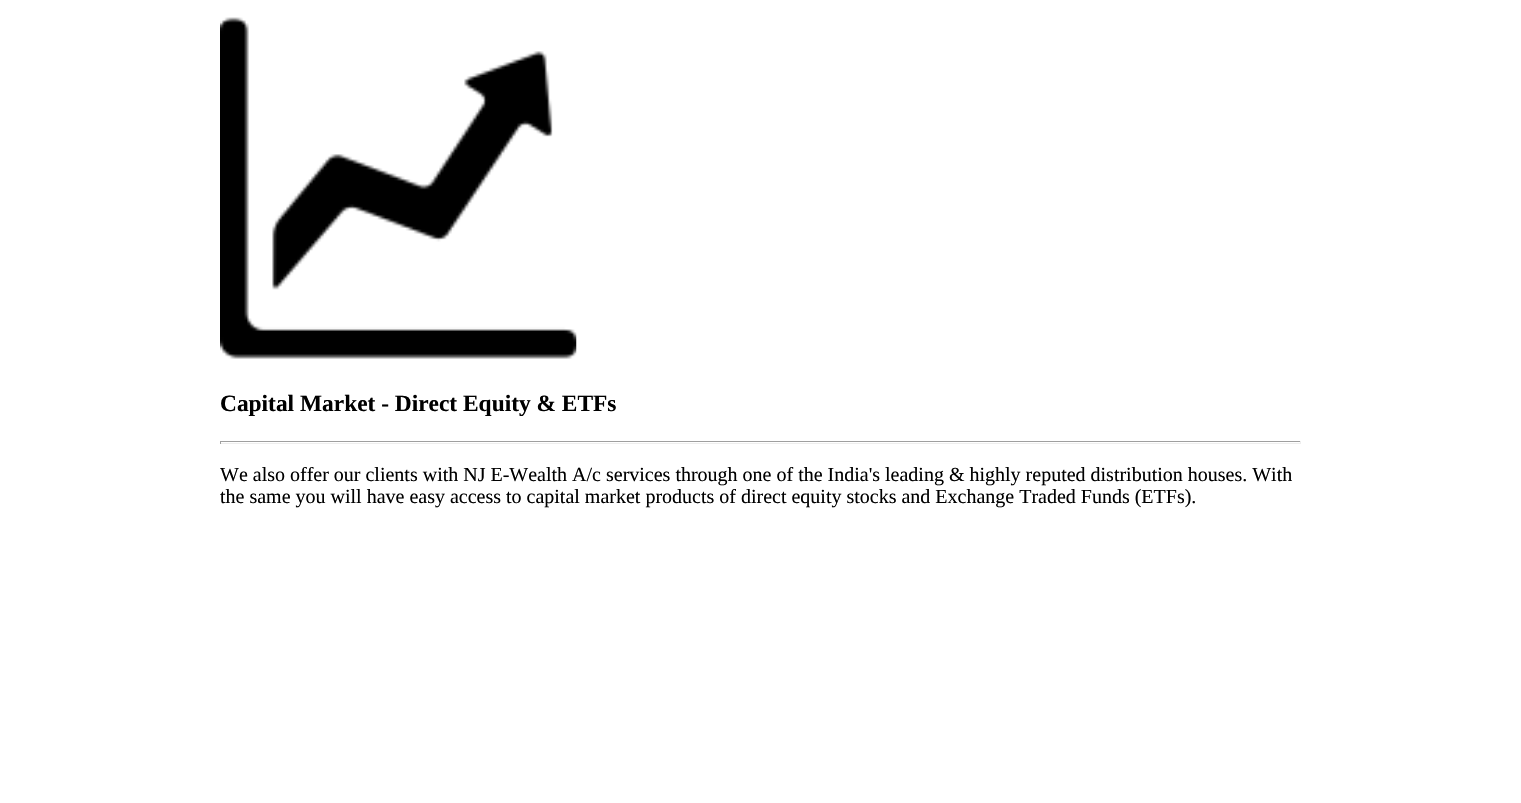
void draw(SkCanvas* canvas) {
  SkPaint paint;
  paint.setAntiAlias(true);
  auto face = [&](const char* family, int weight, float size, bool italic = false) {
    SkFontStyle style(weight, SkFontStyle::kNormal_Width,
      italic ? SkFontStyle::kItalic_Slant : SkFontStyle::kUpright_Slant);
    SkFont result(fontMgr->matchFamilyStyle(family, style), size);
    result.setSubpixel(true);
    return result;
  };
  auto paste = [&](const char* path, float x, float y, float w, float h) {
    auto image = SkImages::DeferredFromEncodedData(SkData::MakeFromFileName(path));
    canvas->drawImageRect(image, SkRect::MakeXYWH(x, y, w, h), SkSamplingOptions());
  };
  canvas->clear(0xffffffff);
  paste("img/1.png", 220, 17, 357, 342);
  {
    const struct { float x, y, w, h; SkColor color; } items[] = {
      {220, 441, 1081, 1, 0xff9f9f9f},
      {1300, 441, 1, 3, 0xffeeeeee},
      {220, 443, 1081, 1, 0xffeeeeee},
      {220, 441, 1, 3, 0xff9f9f9f},
    };
    for (auto [x, y, w, h, color] : items) {
      paint.setColor(color);
      canvas->drawRect(SkRect::MakeXYWH(x, y, w, h), paint);
    }
  }
  auto f0 = face("Liberation Serif", 700, 23.4f);
  paint.setColor(0xff000000);
  canvas->drawString("Capital Market - Direct Equity & ETFs", 220, 411, f0, paint);
  auto f1 = face("Liberation Serif", 400, 20);
  canvas->drawString("We also offer our clients with NJ E-Wealth A/c services through one of the India's leading & highly reputed distribution houses. With", 220, 481, f1, paint);
  canvas->drawString("the same you will have easy access to capital market products of direct equity stocks and Exchange Traded Funds (ETFs).", 220, 503, f1, paint);
}
